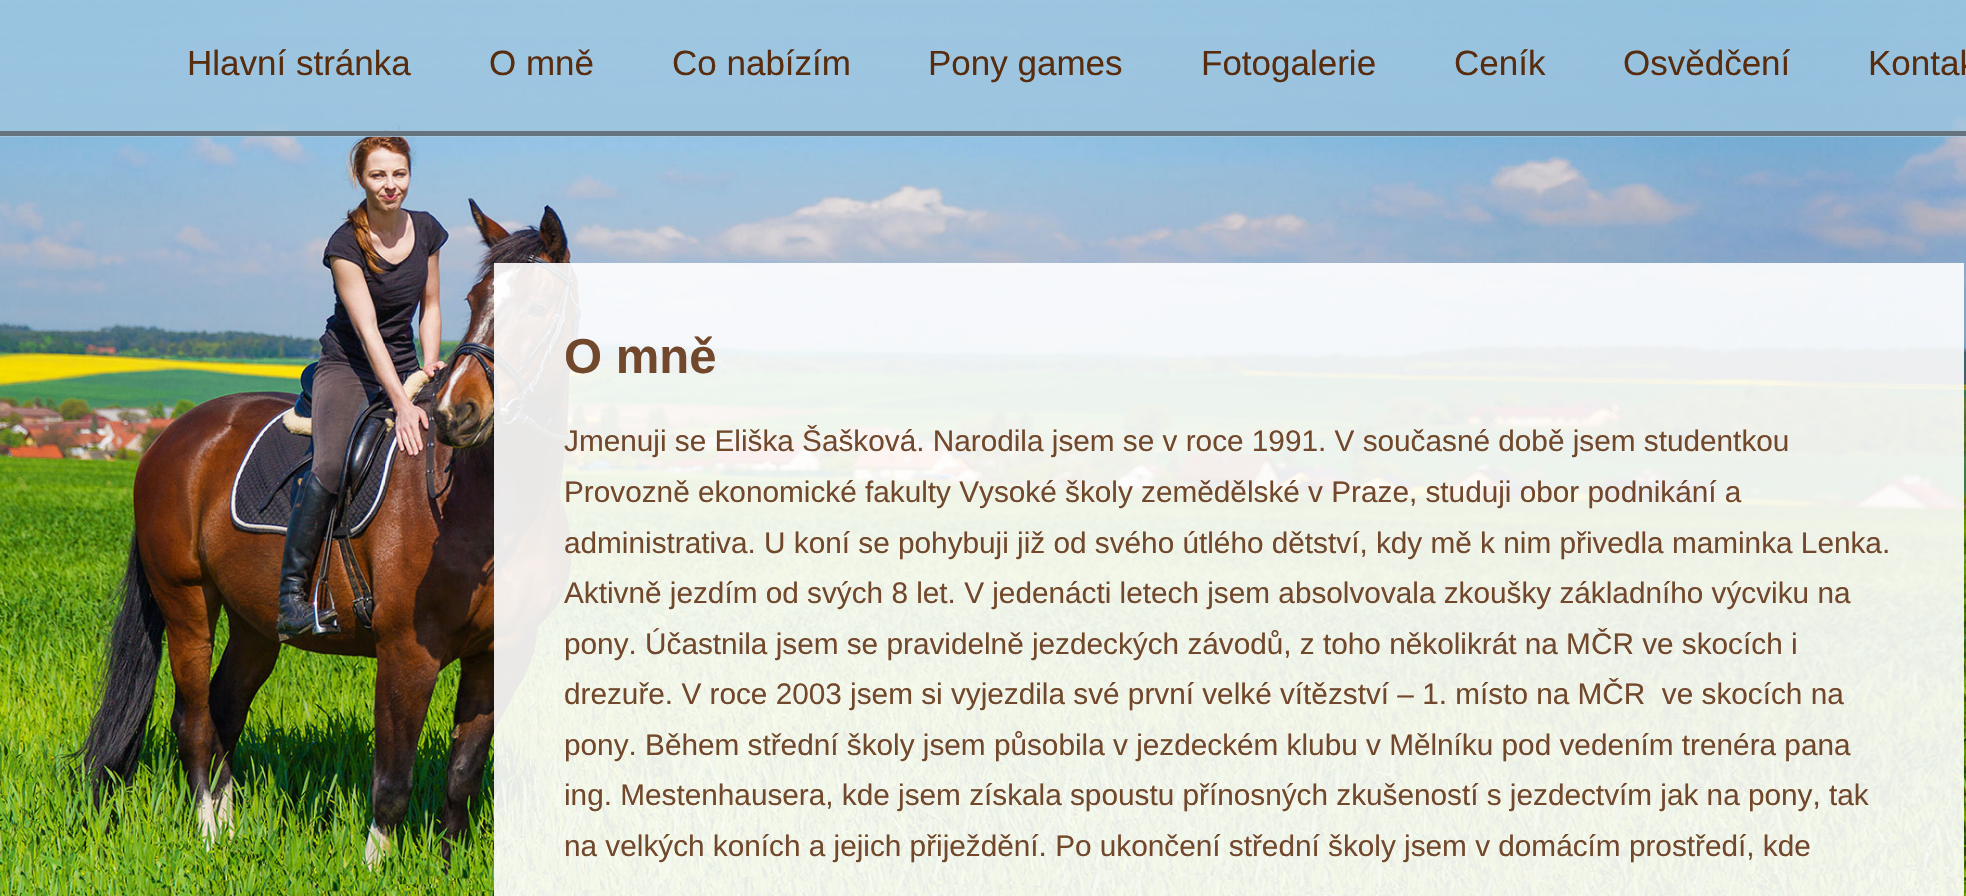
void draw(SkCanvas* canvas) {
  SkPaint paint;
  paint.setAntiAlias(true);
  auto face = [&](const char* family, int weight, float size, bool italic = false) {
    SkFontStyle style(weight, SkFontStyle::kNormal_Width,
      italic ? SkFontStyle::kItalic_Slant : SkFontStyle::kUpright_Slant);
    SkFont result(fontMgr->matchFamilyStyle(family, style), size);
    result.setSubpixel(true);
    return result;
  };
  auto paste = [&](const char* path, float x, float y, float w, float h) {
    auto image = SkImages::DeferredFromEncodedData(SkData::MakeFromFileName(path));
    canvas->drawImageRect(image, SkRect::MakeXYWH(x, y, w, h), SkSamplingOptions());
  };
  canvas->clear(0xffffffff);
  paste("img/1.png", 0, 0, 1966, 896);
  paint.setColor(0xff65737e);
  canvas->drawRect(SkRect::MakeXYWH(0, 131, 1966, 5), paint);
  paint.setColor(0xe6ffffff);
  canvas->drawRect(SkRect::MakeXYWH(494, 263, 1470, 633), paint);
  auto f0 = face("Liberation Sans", 400, 35);
  paint.setColor(0xff582d0f);
  {
    const struct { const char* s; float x, y; } items[] = {
      {"Hlavní stránka", 187, 75},
      {"O mně", 489, 75},
      {"Co nabízím", 672, 75},
      {"Pony games", 928, 75},
      {"Fotogalerie", 1201, 75},
      {"Ceník", 1454, 75},
      {"Osvědčení", 1623, 75},
      {"Kontak", 1868, 75},
    };
    for (auto [s, x, y] : items) {
      canvas->drawString(s, x, y, f0, paint);
    }
  }
  auto f1 = face("Liberation Sans", 700, 49);
  paint.setColor(0xff71482c);
  canvas->drawString("O mně", 564, 373, f1, paint);
  auto f2 = face("Liberation Sans", 400, 29.75f);
  {
    const struct { const char* s; float x, y; } items[] = {
      {"Jmenuji se Eliška Šašková. Narodila jsem se v roce 1991. V současné době jsem studentkou", 564, 451},
      {"Provozně ekonomické fakulty Vysoké školy zemědělské v Praze, studuji obor podnikání a", 564, 502},
      {"administrativa. U koní se pohybuji již od svého útlého dětství, kdy mě k nim přivedla maminka Lenka.", 564, 553},
      {"Aktivně jezdím od svých 8 let. V jedenácti letech jsem absolvovala zkoušky základního výcviku na", 564, 603},
      {"pony. Účastnila jsem se pravidelně jezdeckých závodů, z toho několikrát na MČR ve skocích i", 564, 654},
      {"drezuře. V roce 2003 jsem si vyjezdila své první velké vítězství – 1. místo na MČR  ve skocích na", 564, 704},
      {"pony. Během střední školy jsem působila v jezdeckém klubu v Mělníku pod vedením trenéra pana", 564, 755},
      {"ing. Mestenhausera, kde jsem získala spoustu přínosných zkušeností s jezdectvím jak na pony, tak", 564, 805},
      {"na velkých koních a jejich přiježdění. Po ukončení střední školy jsem v domácím prostředí, kde", 564, 856},
    };
    for (auto [s, x, y] : items) {
      canvas->drawString(s, x, y, f2, paint);
    }
  }
}
